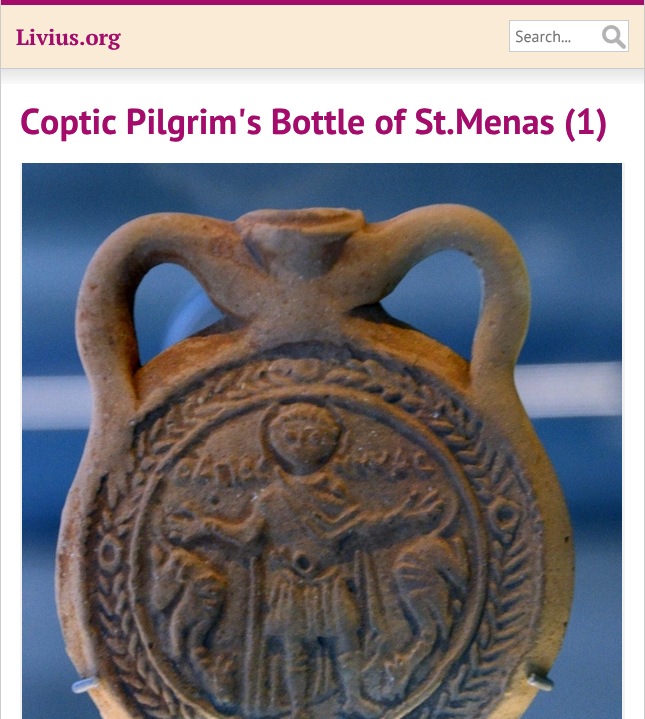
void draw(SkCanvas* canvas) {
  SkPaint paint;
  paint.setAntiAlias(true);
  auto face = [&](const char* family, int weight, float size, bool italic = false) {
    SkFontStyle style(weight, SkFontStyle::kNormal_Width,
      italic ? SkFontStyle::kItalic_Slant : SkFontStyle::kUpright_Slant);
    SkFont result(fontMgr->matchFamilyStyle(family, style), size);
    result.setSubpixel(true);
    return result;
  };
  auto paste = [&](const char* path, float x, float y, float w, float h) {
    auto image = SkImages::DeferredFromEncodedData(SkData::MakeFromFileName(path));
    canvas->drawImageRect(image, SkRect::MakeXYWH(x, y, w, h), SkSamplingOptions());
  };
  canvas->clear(0xffffffff);
  {
    const struct { float x, y, w, h; SkColor color; } items[] = {
      {644, 0, 1, 719, 0xffcccccc},
      {0, 0, 1, 719, 0xffcccccc},
      {1, 5, 643, 63, 0xfffaebd7},
      {1, 0, 643, 5, 0xffa40c6b},
      {1, 68, 643, 1, 0xffcccccc},
      {510, 21, 118, 30, 0xffffffff},
    };
    for (auto [x, y, w, h, color] : items) {
      paint.setColor(color);
      canvas->drawRect(SkRect::MakeXYWH(x, y, w, h), paint);
    }
  }
  paste("img/1.png", 602, 25, 24, 24);
  paint.setStroke(true);
  paint.setStrokeWidth(1);
  paint.setColor(0xffcccccc);
  canvas->drawRect(SkRect::MakeXYWH(509.5f, 20.5f, 119, 31), paint);
  paste("img/2.png", 1, 69, 643, 15);
  paint.setStroke(false);
  paint.setColor(0xfff2f2f2);
  canvas->drawRect(SkRect::MakeXYWH(20, 163, 605, 556), paint);
  paste("img/3.png", 22, 163, 600, 556);
  auto f0 = face("PT Serif", 700, 22);
  paint.setColor(0xffa40c6b);
  canvas->drawString("Livius.org", 16, 45, f0, paint);
  auto f1 = face("PT Sans", 400, 16);
  paint.setColor(0xff757575);
  canvas->drawString("Search...", 515, 42, f1, paint);
  auto f2 = face("PT Sans", 700, 36);
  paint.setColor(0xffa40c6b);
  canvas->drawString("Coptic Pilgrim's Bottle of St.Menas (1)", 20, 134, f2, paint);
}
